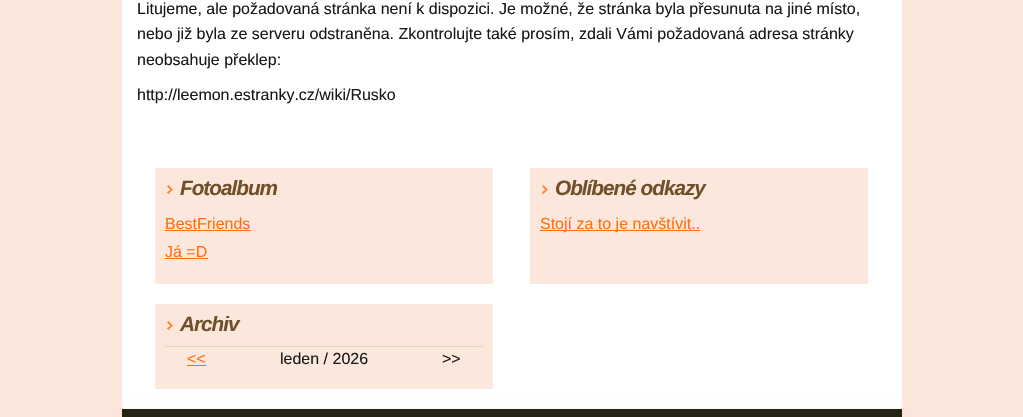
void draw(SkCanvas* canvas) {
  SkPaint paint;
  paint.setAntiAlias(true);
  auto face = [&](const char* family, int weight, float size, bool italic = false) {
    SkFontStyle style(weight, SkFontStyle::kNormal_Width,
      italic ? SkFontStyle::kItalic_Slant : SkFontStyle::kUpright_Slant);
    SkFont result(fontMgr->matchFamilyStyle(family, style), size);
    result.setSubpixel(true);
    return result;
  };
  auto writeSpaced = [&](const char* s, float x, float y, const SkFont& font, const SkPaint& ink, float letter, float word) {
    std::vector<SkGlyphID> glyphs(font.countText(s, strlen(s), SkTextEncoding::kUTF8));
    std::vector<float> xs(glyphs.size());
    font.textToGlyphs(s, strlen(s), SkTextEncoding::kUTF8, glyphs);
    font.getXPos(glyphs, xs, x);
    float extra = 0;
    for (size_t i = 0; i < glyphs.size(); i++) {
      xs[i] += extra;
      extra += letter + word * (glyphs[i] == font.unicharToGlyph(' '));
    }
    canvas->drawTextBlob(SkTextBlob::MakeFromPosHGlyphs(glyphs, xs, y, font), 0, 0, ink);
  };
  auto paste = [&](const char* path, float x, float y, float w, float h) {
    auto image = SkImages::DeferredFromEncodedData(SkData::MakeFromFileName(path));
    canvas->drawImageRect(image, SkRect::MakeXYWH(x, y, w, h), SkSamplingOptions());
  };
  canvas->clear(0xfffce7dc);
  paint.setColor(0xffffffff);
  canvas->drawRect(SkRect::MakeXYWH(122, 0, 780, 409), paint);
  paint.setColor(0xfffce7dc);
  canvas->drawRect(SkRect::MakeXYWH(155, 168, 338, 116), paint);
  paste("img/1.png", 167, 185, 6, 9);
  {
    const struct { float x, y, w, h; SkColor color; } items[] = {
      {165, 230, 86, 1, 0xffff6f12},
      {165, 258, 43, 1, 0xffff6f12},
      {530, 168, 338, 116, 0xfffce7dc},
    };
    for (auto [x, y, w, h, color] : items) {
      paint.setColor(color);
      canvas->drawRect(SkRect::MakeXYWH(x, y, w, h), paint);
    }
  }
  paste("img/1.png", 542, 185, 6, 9);
  paint.setColor(0xffff6f12);
  canvas->drawRect(SkRect::MakeXYWH(540, 230, 160, 1), paint);
  paint.setColor(0xfffce7dc);
  canvas->drawRect(SkRect::MakeXYWH(155, 304, 338, 85), paint);
  paste("img/1.png", 167, 321, 6, 9);
  paint.setColor(0xffff6f12);
  canvas->drawRect(SkRect::MakeXYWH(187, 365, 19, 1), paint);
  paint.setColor(0xffded7b6);
  canvas->drawRect(SkRect::MakeXYWH(165, 346, 318, 1), paint);
  paint.setColor(0xffffd2b9);
  paint.setMaskFilter(SkMaskFilter::MakeBlur(kNormal_SkBlurStyle, 10));
  canvas->drawRoundRect(SkRect::MakeXYWH(115, 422, 794, 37), 12, 12, paint);
  paint.setMaskFilter(nullptr);
  paint.setColor(0xff252314);
  canvas->drawRect(SkRect::MakeXYWH(122, 409, 780, 8), paint);
  auto f0 = face("Liberation Sans", 400, 16);
  paint.setColor(0xff191919);
  {
    const struct { const char* s; float x, y; } items[] = {
      {"Litujeme, ale požadovaná stránka není k dispozici. Je možné, že stránka byla přesunuta na jiné místo,", 137, 14},
      {"nebo již byla ze serveru odstraněna. Zkontrolujte také prosím, zdali Vámi požadovaná adresa stránky", 137, 39},
      {"neobsahuje překlep:", 137, 65},
      {"http://leemon.estranky.cz/wiki/Rusko", 137, 100},
    };
    for (auto [s, x, y] : items) {
      canvas->drawString(s, x, y, f0, paint);
    }
  }
  auto f1 = face("Liberation Sans", 700, 20.75f, true);
  paint.setColor(0xff70502b);
  writeSpaced("Fotoalbum", 180, 195, f1, paint, -1, 0);
  paint.setColor(0xffff6f12);
  canvas->drawString("BestFriends", 165, 229, f0, paint);
  canvas->drawString("Já =D", 165, 257, f0, paint);
  paint.setColor(0xff70502b);
  writeSpaced("Oblíbené odkazy", 555, 195, f1, paint, -1, 0);
  paint.setColor(0xffff6f12);
  canvas->drawString("Stojí za to je navštívit..", 540, 229, f0, paint);
  paint.setColor(0xff70502b);
  writeSpaced("Archiv", 180, 331, f1, paint, -1, 0);
  paint.setColor(0xffff6f12);
  canvas->drawString("<<", 187, 364, f0, paint);
  paint.setColor(0xff191919);
  canvas->drawString("leden / 2026", 280, 364, f0, paint);
  canvas->drawString(">>", 442, 364, f0, paint);
}
